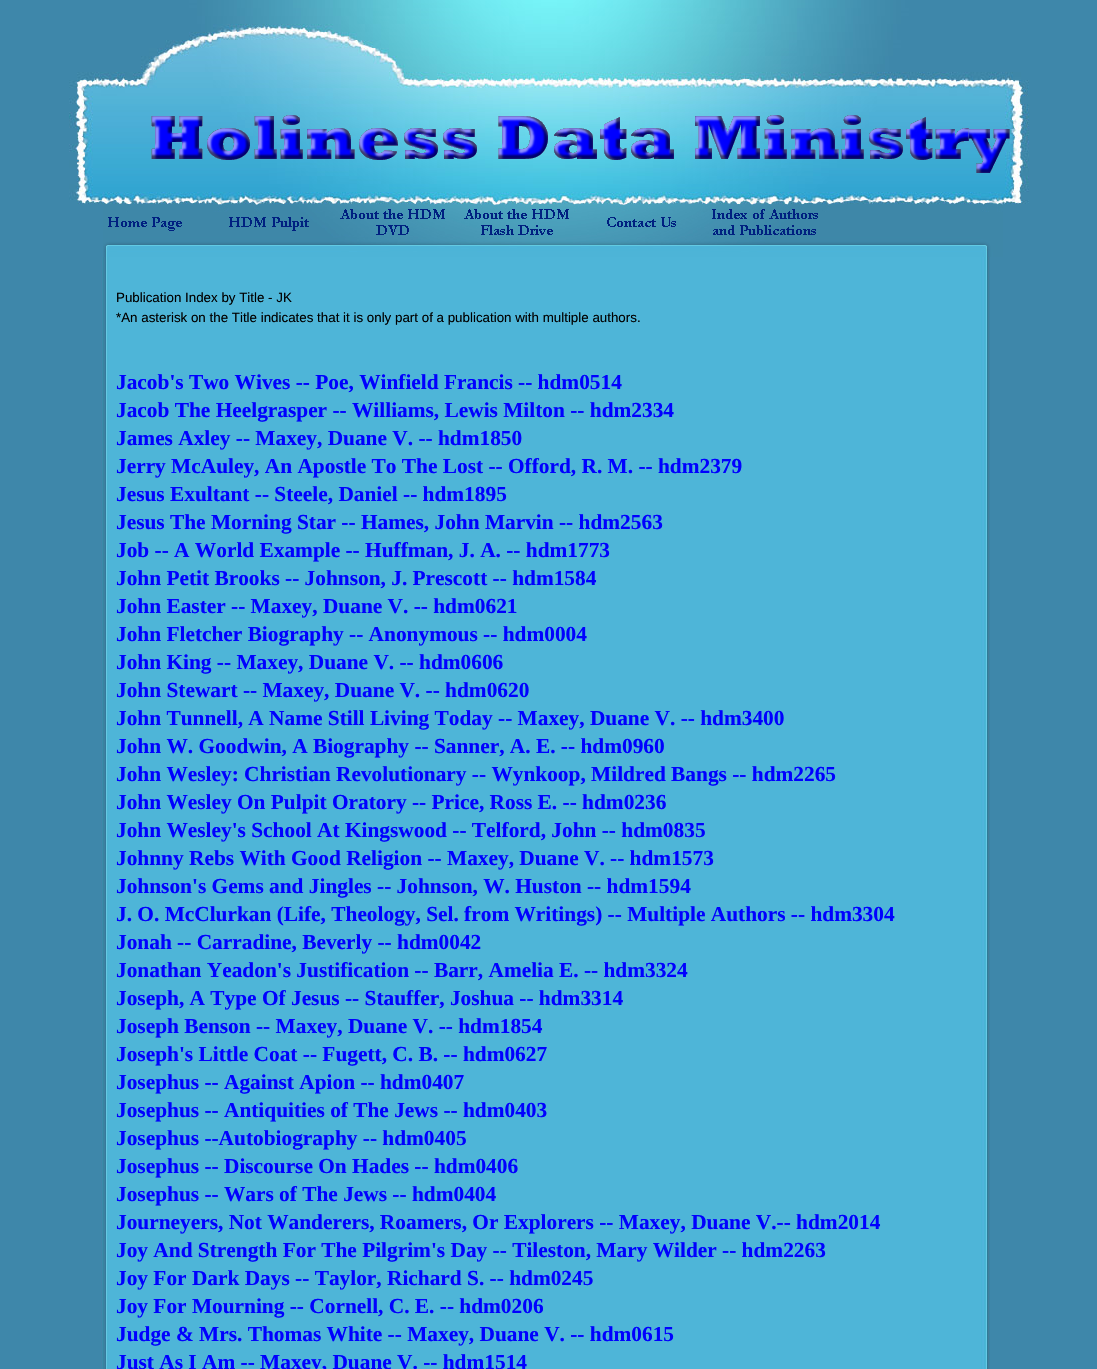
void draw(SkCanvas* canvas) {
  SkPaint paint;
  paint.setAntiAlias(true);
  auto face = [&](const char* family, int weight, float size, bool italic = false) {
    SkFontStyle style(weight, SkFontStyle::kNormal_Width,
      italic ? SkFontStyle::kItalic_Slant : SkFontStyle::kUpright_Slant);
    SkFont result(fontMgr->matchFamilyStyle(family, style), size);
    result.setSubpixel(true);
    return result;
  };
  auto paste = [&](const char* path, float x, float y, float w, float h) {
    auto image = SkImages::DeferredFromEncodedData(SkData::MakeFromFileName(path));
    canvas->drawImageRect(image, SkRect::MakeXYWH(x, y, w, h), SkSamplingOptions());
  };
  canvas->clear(0xff3e87aa);
  paste("img/1.png", 69, 0, 960, 204);
  paste("img/2.png", 103, 204, 900, 53);
  paste("img/3.png", 108, 217, 74, 14);
  paste("img/4.png", 229, 217, 80, 14);
  paste("img/5.png", 340, 209, 105, 26);
  paste("img/6.png", 464, 209, 105, 26);
  paste("img/7.png", 607, 217, 69, 10);
  paste("img/8.png", 712, 209, 106, 26);
  paste("img/9.png", 101, 257, 889, 1112);
  auto f0 = face("Liberation Sans", 400, 13.35f);
  paint.setColor(0xff000000);
  canvas->drawString("Publication Index by Title - JK", 116, 302, f0, paint);
  canvas->drawString("*An asterisk on the Title indicates that it is only part of a publication with multiple authors.", 116, 322, f0, paint);
  auto f1 = face("Liberation Serif", 700, 21.35f);
  paint.setColor(0xff0000ff);
  {
    const struct { const char* s; float x, y; } items[] = {
      {"Jacob's Two Wives -- Poe, Winfield Francis -- hdm0514", 116, 389},
      {"Jacob The Heelgrasper -- Williams, Lewis Milton -- hdm2334", 116, 417},
      {"James Axley -- Maxey, Duane V. -- hdm1850", 116, 445},
      {"Jerry McAuley, An Apostle To The Lost -- Offord, R. M. -- hdm2379", 116, 473},
      {"Jesus Exultant -- Steele, Daniel -- hdm1895", 116, 501},
      {"Jesus The Morning Star -- Hames, John Marvin -- hdm2563", 116, 529},
      {"Job -- A World Example -- Huffman, J. A. -- hdm1773", 116, 557},
      {"John Petit Brooks -- Johnson, J. Prescott -- hdm1584", 116, 585},
      {"John Easter -- Maxey, Duane V. -- hdm0621", 116, 613},
      {"John Fletcher Biography -- Anonymous -- hdm0004", 116, 641},
      {"John King -- Maxey, Duane V. -- hdm0606", 116, 669},
      {"John Stewart -- Maxey, Duane V. -- hdm0620", 116, 697},
      {"John Tunnell, A Name Still Living Today -- Maxey, Duane V. -- hdm3400", 116, 725},
      {"John W. Goodwin, A Biography -- Sanner, A. E. -- hdm0960", 116, 753},
      {"John Wesley: Christian Revolutionary -- Wynkoop, Mildred Bangs -- hdm2265", 116, 781},
      {"John Wesley On Pulpit Oratory -- Price, Ross E. -- hdm0236", 116, 809},
      {"John Wesley's School At Kingswood -- Telford, John -- hdm0835", 116, 837},
      {"Johnny Rebs With Good Religion -- Maxey, Duane V. -- hdm1573", 116, 865},
      {"Johnson's Gems and Jingles -- Johnson, W. Huston -- hdm1594", 116, 893},
      {"J. O. McClurkan (Life, Theology, Sel. from Writings) -- Multiple Authors -- hdm3304", 116, 921},
      {"Jonah -- Carradine, Beverly -- hdm0042", 116, 949},
      {"Jonathan Yeadon's Justification -- Barr, Amelia E. -- hdm3324", 116, 977},
      {"Joseph, A Type Of Jesus -- Stauffer, Joshua -- hdm3314", 116, 1005},
      {"Joseph Benson -- Maxey, Duane V. -- hdm1854", 116, 1033},
      {"Joseph's Little Coat -- Fugett, C. B. -- hdm0627", 116, 1061},
      {"Josephus -- Against Apion -- hdm0407", 116, 1089},
      {"Josephus -- Antiquities of The Jews -- hdm0403", 116, 1117},
      {"Josephus --Autobiography -- hdm0405", 116, 1145},
      {"Josephus -- Discourse On Hades -- hdm0406", 116, 1173},
      {"Josephus -- Wars of The Jews -- hdm0404", 116, 1201},
      {"Journeyers, Not Wanderers, Roamers, Or Explorers -- Maxey, Duane V.-- hdm2014", 116, 1229},
      {"Joy And Strength For The Pilgrim's Day -- Tileston, Mary Wilder -- hdm2263", 116, 1257},
      {"Joy For Dark Days -- Taylor, Richard S. -- hdm0245", 116, 1285},
      {"Joy For Mourning -- Cornell, C. E. -- hdm0206", 116, 1313},
      {"Judge & Mrs. Thomas White -- Maxey, Duane V. -- hdm0615", 116, 1341},
      {"Just As I Am -- Maxey, Duane V. -- hdm1514", 116, 1369},
    };
    for (auto [s, x, y] : items) {
      canvas->drawString(s, x, y, f1, paint);
    }
  }
}
